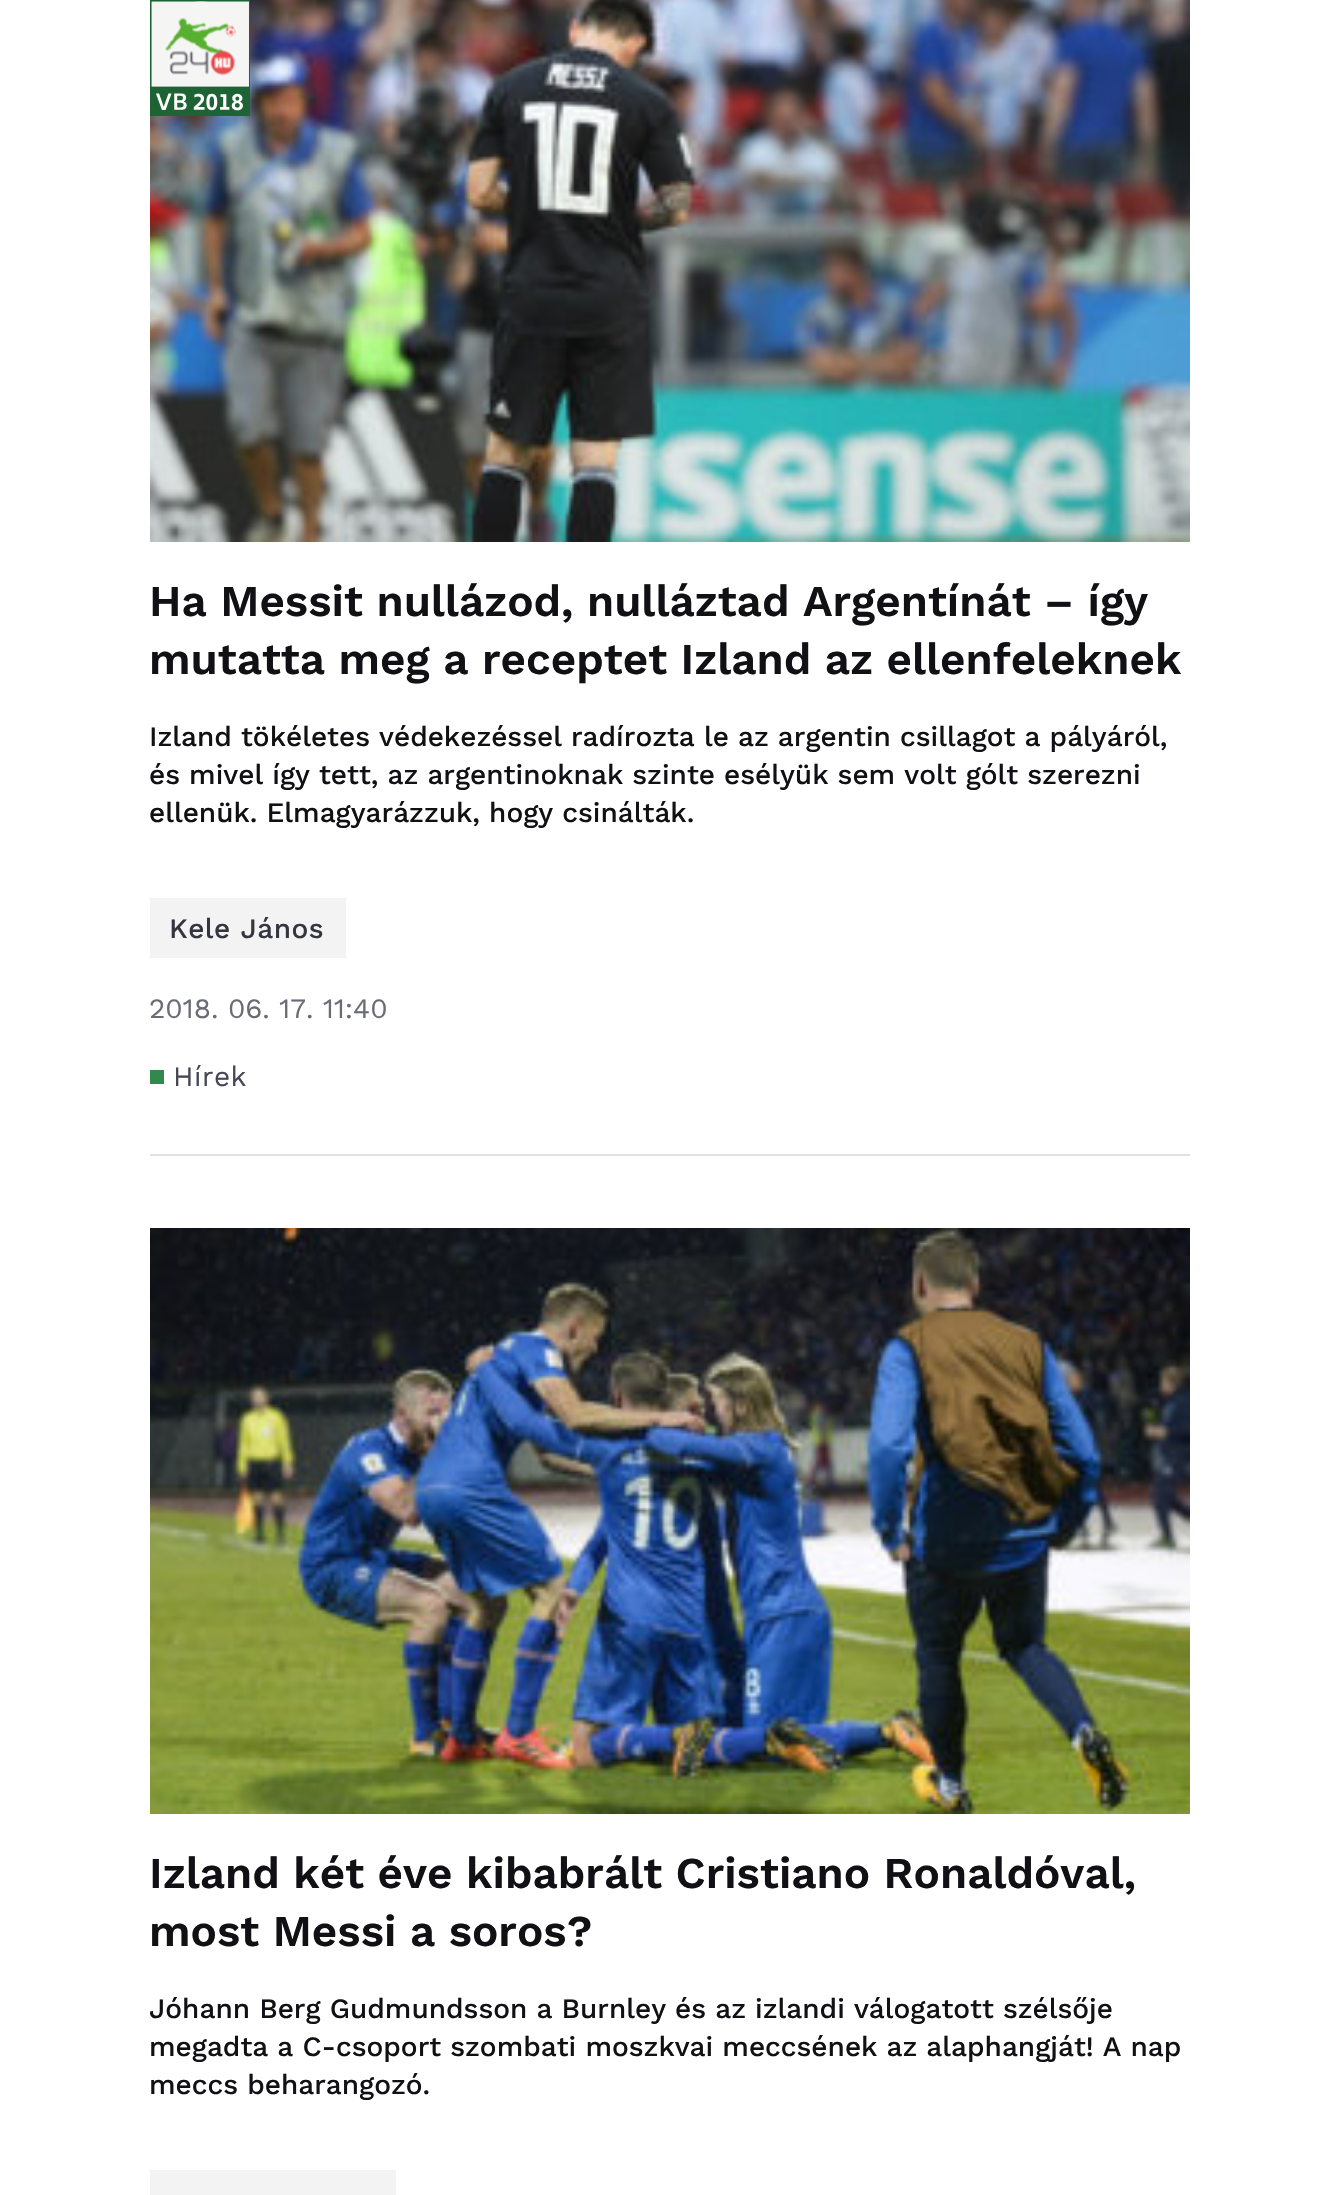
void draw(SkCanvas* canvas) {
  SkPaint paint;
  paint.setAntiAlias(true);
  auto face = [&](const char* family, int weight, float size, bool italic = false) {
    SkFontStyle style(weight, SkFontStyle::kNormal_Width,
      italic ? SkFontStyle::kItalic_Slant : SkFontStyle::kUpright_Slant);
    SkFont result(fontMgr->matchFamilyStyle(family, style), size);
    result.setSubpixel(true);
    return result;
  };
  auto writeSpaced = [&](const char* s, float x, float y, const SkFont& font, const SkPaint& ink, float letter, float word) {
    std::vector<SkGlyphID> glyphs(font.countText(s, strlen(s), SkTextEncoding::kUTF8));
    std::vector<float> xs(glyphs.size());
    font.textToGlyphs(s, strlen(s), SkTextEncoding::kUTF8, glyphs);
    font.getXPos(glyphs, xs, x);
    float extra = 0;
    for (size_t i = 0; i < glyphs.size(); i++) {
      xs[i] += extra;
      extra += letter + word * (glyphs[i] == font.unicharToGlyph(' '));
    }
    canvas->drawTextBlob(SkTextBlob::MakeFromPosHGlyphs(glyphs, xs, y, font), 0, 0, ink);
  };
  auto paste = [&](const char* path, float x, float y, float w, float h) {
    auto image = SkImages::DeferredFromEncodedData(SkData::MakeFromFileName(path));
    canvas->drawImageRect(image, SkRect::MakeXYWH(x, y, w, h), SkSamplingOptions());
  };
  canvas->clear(0xffffffff);
  paste("img/2.png", 150, 0, 1040, 542);
  paste("img/1.png", 150, 0, 100, 116);
  {
    const struct { float x, y, w, h; SkColor color; } items[] = {
      {150, 1154, 1040, 2, 0xffe1e1e4},
      {150, 898, 196, 60, 0xfff3f3f4},
      {150, 1070, 14, 14, 0xff318a4d},
    };
    for (auto [x, y, w, h, color] : items) {
      paint.setColor(color);
      canvas->drawRect(SkRect::MakeXYWH(x, y, w, h), paint);
    }
  }
  paste("img/3.png", 150, 1228, 1040, 586);
  paint.setColor(0xfff3f3f4);
  canvas->drawRect(SkRect::MakeXYWH(150, 2170, 246, 25), paint);
  auto f0 = face("Work Sans", 600, 44);
  paint.setColor(0xff111115);
  canvas->drawString("Ha Messit nullázod, nulláztad Argentínát – így", 149, 616, f0, paint);
  canvas->drawString("mutatta meg a receptet Izland az ellenfeleknek", 149, 674, f0, paint);
  auto f1 = face("Work Sans", 500, 28);
  {
    const struct { const char* s; float x, y; } items[] = {
      {"Izland tökéletes védekezéssel radírozta le az argentin csillagot a pályáról,", 149, 746},
      {"és mivel így tett, az argentinoknak szinte esélyük sem volt gólt szerezni", 149, 784},
      {"ellenük. Elmagyarázzuk, hogy csinálták.", 149, 822},
    };
    for (auto [s, x, y] : items) {
      canvas->drawString(s, x, y, f1, paint);
    }
  }
  paint.setColor(0xff353540);
  writeSpaced("Kele János", 169, 938, f1, paint, 0.5f, 0);
  auto f2 = face("Work Sans", 400, 28);
  paint.setColor(0xff6b6b76);
  canvas->drawString("2018. 06. 17. 11:40", 149, 1018, f2, paint);
  paint.setColor(0xff464655);
  writeSpaced("Hírek", 173, 1086, f2, paint, 0.5f, 0);
  paint.setColor(0xff111115);
  canvas->drawString("Izland két éve kibabrált Cristiano Ronaldóval,", 149, 1888, f0, paint);
  canvas->drawString("most Messi a soros?", 149, 1946, f0, paint);
  {
    const struct { const char* s; float x, y; } items[] = {
      {"Jóhann Berg Gudmundsson a Burnley és az izlandi válogatott szélsője", 149, 2018},
      {"megadta a C-csoport szombati moszkvai meccsének az alaphangját! A nap", 149, 2056},
      {"meccs beharangozó.", 149, 2094},
    };
    for (auto [s, x, y] : items) {
      canvas->drawString(s, x, y, f1, paint);
    }
  }
}
